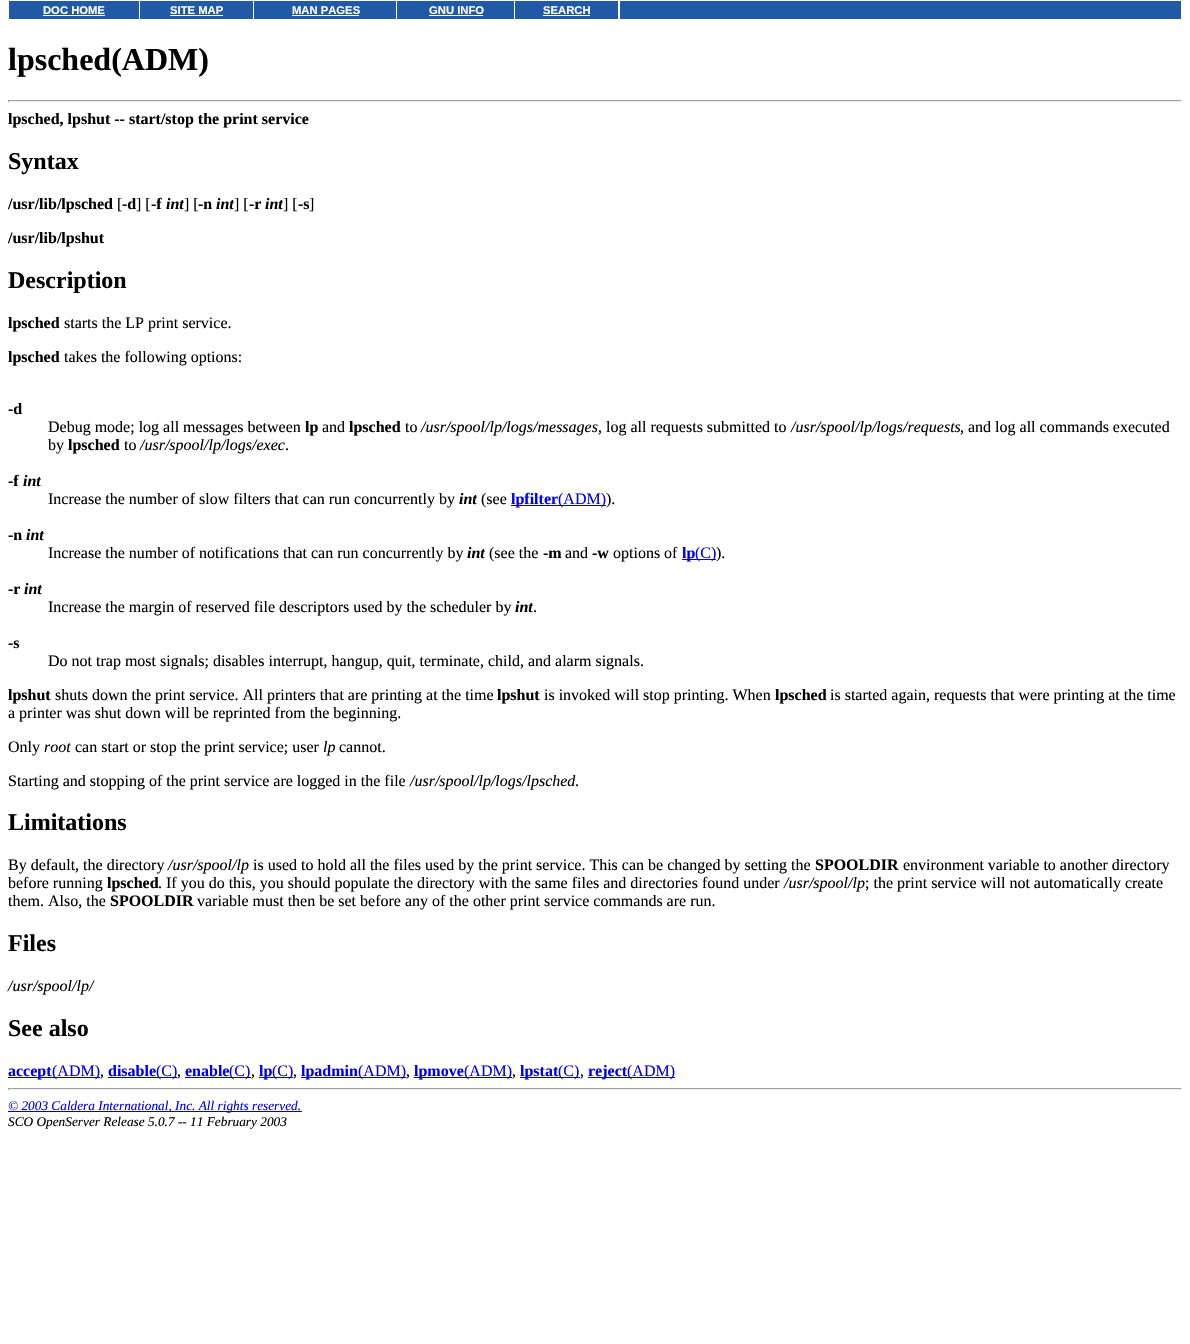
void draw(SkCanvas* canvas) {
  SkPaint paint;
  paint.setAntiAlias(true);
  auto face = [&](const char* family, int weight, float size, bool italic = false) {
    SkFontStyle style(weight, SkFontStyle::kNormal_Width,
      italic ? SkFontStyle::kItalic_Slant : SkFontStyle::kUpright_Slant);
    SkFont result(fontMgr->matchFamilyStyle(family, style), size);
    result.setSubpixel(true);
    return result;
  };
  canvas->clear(0xffffffff);
  {
    const struct { float x, y, w, h; SkColor color; } items[] = {
      {9, 1, 130, 18, 0xff2059a6},
      {43, 15, 62, 1, 0xffffffff},
      {140, 1, 113, 18, 0xff2059a6},
      {170, 15, 53, 1, 0xffffffff},
      {254, 1, 142, 18, 0xff2059a6},
      {292, 15, 67, 1, 0xffffffff},
      {397, 1, 117, 18, 0xff2059a6},
      {429, 15, 54, 1, 0xffffffff},
      {515, 1, 103, 18, 0xff2059a6},
      {543, 15, 47, 1, 0xffffffff},
      {620, 1, 561, 18, 0xff2059a6},
      {8, 100, 1174, 1, 0xff9f9f9f},
      {1181, 100, 1, 2, 0xffeeeeee},
      {8, 101, 1174, 1, 0xffeeeeee},
      {8, 100, 1, 2, 0xff9f9f9f},
      {511, 505, 95, 1, 0xff0000ee},
      {682, 559, 34, 1, 0xff0000ee},
      {8, 1077, 92, 1, 0xff0000ee},
      {108, 1077, 69, 1, 0xff0000ee},
      {185, 1077, 66, 1, 0xff0000ee},
      {259, 1077, 34, 1, 0xff0000ee},
      {301, 1077, 105, 1, 0xff0000ee},
      {414, 1077, 98, 1, 0xff0000ee},
      {520, 1077, 38, 1, 0xff0000ee},
      {558, 1077, 22, 1, 0xff0000ee},
      {588, 1077, 87, 1, 0xff0000ee},
      {8, 1088, 1174, 1, 0xff9f9f9f},
      {1181, 1088, 1, 2, 0xffeeeeee},
      {8, 1089, 1174, 1, 0xffeeeeee},
      {8, 1088, 1, 2, 0xff9f9f9f},
      {8, 1111, 294, 1, 0xff0000ee},
    };
    for (auto [x, y, w, h, color] : items) {
      paint.setColor(color);
      canvas->drawRect(SkRect::MakeXYWH(x, y, w, h), paint);
    }
  }
  auto f0 = face("Liberation Sans", 700, 11.25f);
  paint.setColor(0xffffffff);
  {
    const struct { const char* s; float x, y; } items[] = {
      {"DOC HOME", 43, 14},
      {"SITE MAP", 170, 14},
      {"MAN PAGES", 292, 14},
      {"GNU INFO", 429, 14},
      {"SEARCH", 543, 14},
    };
    for (auto [s, x, y] : items) {
      canvas->drawString(s, x, y, f0, paint);
    }
  }
  auto f1 = face("Liberation Serif", 700, 32);
  paint.setColor(0xff000000);
  canvas->drawString("lpsched(ADM)", 8, 70, f1, paint);
  auto f2 = face("Liberation Serif", 700, 16);
  canvas->drawString("lpsched, lpshut -- start/stop the print service", 8, 124, f2, paint);
  auto f3 = face("Liberation Serif", 700, 24);
  canvas->drawString("Syntax", 8, 169, f3, paint);
  canvas->drawString("/usr/lib/lpsched", 8, 209, f2, paint);
  auto f4 = face("Liberation Serif", 400, 16);
  canvas->drawString("[", 117, 209, f4, paint);
  canvas->drawString("-d", 122, 209, f2, paint);
  canvas->drawString("] [", 136, 209, f4, paint);
  canvas->drawString("-f", 151, 209, f2, paint);
  auto f5 = face("Liberation Serif", 700, 16, true);
  canvas->drawString("int", 166, 209, f5, paint);
  canvas->drawString("] [", 184, 209, f4, paint);
  canvas->drawString("-n", 198, 209, f2, paint);
  canvas->drawString("int", 216, 209, f5, paint);
  canvas->drawString("] [", 234, 209, f4, paint);
  canvas->drawString("-r", 249, 209, f2, paint);
  canvas->drawString("int", 265, 209, f5, paint);
  canvas->drawString("] [", 283, 209, f4, paint);
  canvas->drawString("-s", 298, 209, f2, paint);
  canvas->drawString("]", 309, 209, f4, paint);
  canvas->drawString("/usr/lib/lpshut", 8, 243, f2, paint);
  canvas->drawString("Description", 8, 288, f3, paint);
  canvas->drawString("lpsched", 8, 328, f2, paint);
  canvas->drawString("starts the LP print service.", 64, 328, f4, paint);
  canvas->drawString("lpsched", 8, 362, f2, paint);
  canvas->drawString("takes the following options:", 64, 362, f4, paint);
  canvas->drawString("-d", 8, 414, f2, paint);
  canvas->drawString("Debug mode; log all messages between", 48, 432, f4, paint);
  canvas->drawString("lp", 305, 432, f2, paint);
  canvas->drawString("and", 322, 432, f4, paint);
  canvas->drawString("lpsched", 349, 432, f2, paint);
  canvas->drawString("to", 405, 432, f4, paint);
  auto f6 = face("Liberation Serif", 400, 16, true);
  canvas->drawString("/usr/spool/lp/logs/messages", 421, 432, f6, paint);
  canvas->drawString(", log all requests submitted to", 598, 432, f4, paint);
  canvas->drawString("/usr/spool/lp/logs/requests", 791, 432, f6, paint);
  canvas->drawString(", and log all commands executed", 960, 432, f4, paint);
  canvas->drawString("by", 48, 450, f4, paint);
  canvas->drawString("lpsched", 68, 450, f2, paint);
  canvas->drawString("to", 124, 450, f4, paint);
  canvas->drawString("/usr/spool/lp/logs/exec", 140, 450, f6, paint);
  canvas->drawString(".", 285, 450, f4, paint);
  canvas->drawString("-f", 8, 486, f2, paint);
  canvas->drawString("int", 23, 486, f5, paint);
  canvas->drawString("Increase the number of slow filters that can run concurrently by", 48, 504, f4, paint);
  canvas->drawString("int", 459, 504, f5, paint);
  canvas->drawString("(see", 481, 504, f4, paint);
  paint.setColor(0xff0000ee);
  canvas->drawString("lpfilter", 511, 504, f2, paint);
  canvas->drawString("(ADM)", 558, 504, f4, paint);
  paint.setColor(0xff000000);
  canvas->drawString(").", 606, 504, f4, paint);
  canvas->drawString("-n", 8, 540, f2, paint);
  canvas->drawString("int", 26, 540, f5, paint);
  canvas->drawString("Increase the number of notifications that can run concurrently by", 48, 558, f4, paint);
  canvas->drawString("int", 467, 558, f5, paint);
  canvas->drawString("(see the", 489, 558, f4, paint);
  canvas->drawString("-m", 543, 558, f2, paint);
  canvas->drawString("and", 565, 558, f4, paint);
  canvas->drawString("-w", 592, 558, f2, paint);
  canvas->drawString("options of", 613, 558, f4, paint);
  paint.setColor(0xff0000ee);
  canvas->drawString("lp", 682, 558, f2, paint);
  canvas->drawString("(C)", 695, 558, f4, paint);
  paint.setColor(0xff000000);
  canvas->drawString(").", 716, 558, f4, paint);
  canvas->drawString("-r", 8, 594, f2, paint);
  canvas->drawString("int", 24, 594, f5, paint);
  canvas->drawString("Increase the margin of reserved file descriptors used by the scheduler by", 48, 612, f4, paint);
  canvas->drawString("int", 515, 612, f5, paint);
  canvas->drawString(".", 533, 612, f4, paint);
  canvas->drawString("-s", 8, 648, f2, paint);
  canvas->drawString("Do not trap most signals; disables interrupt, hangup, quit, terminate, child, and alarm signals.", 48, 666, f4, paint);
  canvas->drawString("lpshut", 8, 700, f2, paint);
  canvas->drawString("shuts down the print service. All printers that are printing at the time", 55, 700, f4, paint);
  canvas->drawString("lpshut", 497, 700, f2, paint);
  canvas->drawString("is invoked will stop printing. When", 544, 700, f4, paint);
  canvas->drawString("lpsched", 775, 700, f2, paint);
  {
    const struct { const char* s; float x, y; } items[] = {
      {"is started again, requests that were printing at the time", 830, 700},
      {"a printer was shut down will be reprinted from the beginning.", 8, 718},
      {"Only", 8, 752},
    };
    for (auto [s, x, y] : items) {
      canvas->drawString(s, x, y, f4, paint);
    }
  }
  canvas->drawString("root", 44, 752, f6, paint);
  canvas->drawString("can start or stop the print service; user", 75, 752, f4, paint);
  canvas->drawString("lp", 323, 752, f6, paint);
  canvas->drawString("cannot.", 339, 752, f4, paint);
  canvas->drawString("Starting and stopping of the print service are logged in the file", 8, 786, f4, paint);
  canvas->drawString("/usr/spool/lp/logs/lpsched", 410, 786, f6, paint);
  canvas->drawString(".", 575, 786, f4, paint);
  canvas->drawString("Limitations", 8, 830, f3, paint);
  canvas->drawString("By default, the directory", 8, 870, f4, paint);
  canvas->drawString("/usr/spool/lp", 168, 870, f6, paint);
  canvas->drawString("is used to hold all the files used by the print service. This can be changed by setting the", 253, 870, f4, paint);
  canvas->drawString("SPOOLDIR", 815, 870, f2, paint);
  canvas->drawString("environment variable to another directory", 903, 870, f4, paint);
  canvas->drawString("before running", 8, 888, f4, paint);
  canvas->drawString("lpsched", 107, 888, f2, paint);
  canvas->drawString(". If you do this, you should populate the directory with the same files and directories found under", 158, 888, f4, paint);
  canvas->drawString("/usr/spool/lp", 784, 888, f6, paint);
  canvas->drawString("; the print service will not automatically create", 865, 888, f4, paint);
  canvas->drawString("them. Also, the", 8, 906, f4, paint);
  canvas->drawString("SPOOLDIR", 110, 906, f2, paint);
  canvas->drawString("variable must then be set before any of the other print service commands are run.", 197, 906, f4, paint);
  canvas->drawString("Files", 8, 951, f3, paint);
  canvas->drawString("/usr/spool/lp/", 8, 991, f6, paint);
  canvas->drawString("See also", 8, 1036, f3, paint);
  paint.setColor(0xff0000ee);
  canvas->drawString("accept", 8, 1076, f2, paint);
  canvas->drawString("(ADM)", 52, 1076, f4, paint);
  paint.setColor(0xff000000);
  canvas->drawString(",", 100, 1076, f4, paint);
  paint.setColor(0xff0000ee);
  canvas->drawString("disable", 108, 1076, f2, paint);
  canvas->drawString("(C)", 156, 1076, f4, paint);
  paint.setColor(0xff000000);
  canvas->drawString(",", 177, 1076, f4, paint);
  paint.setColor(0xff0000ee);
  canvas->drawString("enable", 185, 1076, f2, paint);
  canvas->drawString("(C)", 229, 1076, f4, paint);
  paint.setColor(0xff000000);
  canvas->drawString(",", 251, 1076, f4, paint);
  paint.setColor(0xff0000ee);
  canvas->drawString("lp", 259, 1076, f2, paint);
  canvas->drawString("(C)", 272, 1076, f4, paint);
  paint.setColor(0xff000000);
  canvas->drawString(",", 293, 1076, f4, paint);
  paint.setColor(0xff0000ee);
  canvas->drawString("lpadmin", 301, 1076, f2, paint);
  canvas->drawString("(ADM)", 358, 1076, f4, paint);
  paint.setColor(0xff000000);
  canvas->drawString(",", 406, 1076, f4, paint);
  paint.setColor(0xff0000ee);
  canvas->drawString("lpmove", 414, 1076, f2, paint);
  canvas->drawString("(ADM)", 464, 1076, f4, paint);
  paint.setColor(0xff000000);
  canvas->drawString(",", 512, 1076, f4, paint);
  paint.setColor(0xff0000ee);
  canvas->drawString("lpstat", 520, 1076, f2, paint);
  canvas->drawString("(C)", 558, 1076, f4, paint);
  paint.setColor(0xff000000);
  canvas->drawString(",", 580, 1076, f4, paint);
  paint.setColor(0xff0000ee);
  canvas->drawString("reject", 588, 1076, f2, paint);
  canvas->drawString("(ADM)", 627, 1076, f4, paint);
  auto f7 = face("Liberation Serif", 400, 13.3f, true);
  canvas->drawString("© 2003 Caldera International, Inc. All rights reserved.", 8, 1110, f7, paint);
  paint.setColor(0xff000000);
  canvas->drawString("SCO OpenServer Release 5.0.7 -- 11 February 2003", 8, 1126, f7, paint);
}
